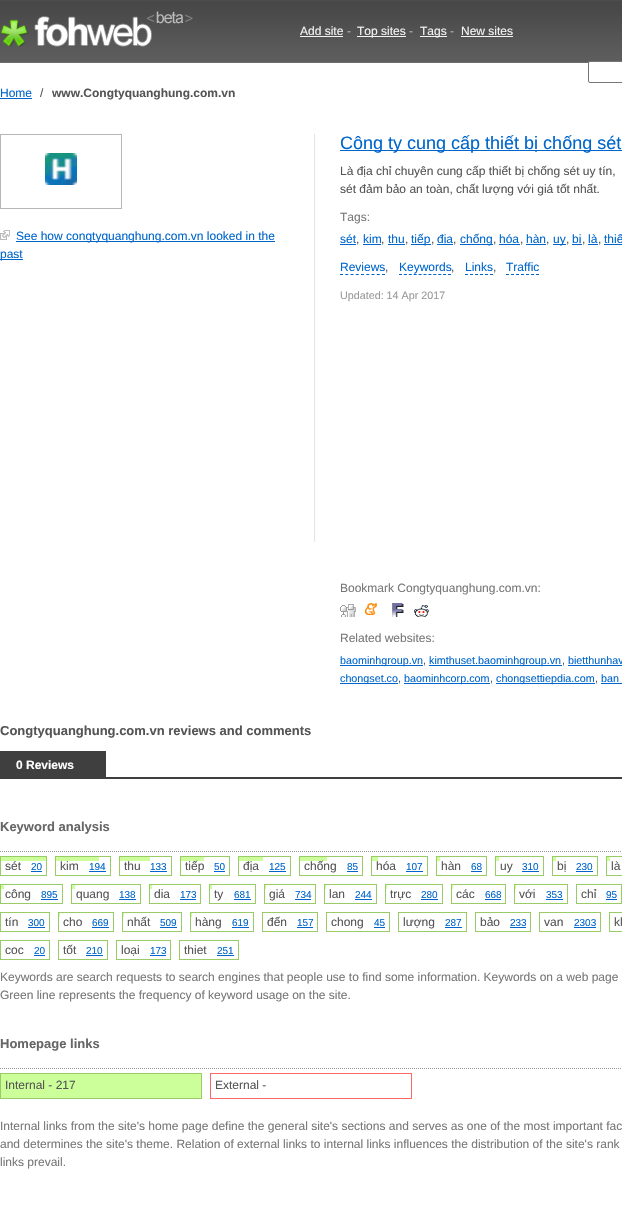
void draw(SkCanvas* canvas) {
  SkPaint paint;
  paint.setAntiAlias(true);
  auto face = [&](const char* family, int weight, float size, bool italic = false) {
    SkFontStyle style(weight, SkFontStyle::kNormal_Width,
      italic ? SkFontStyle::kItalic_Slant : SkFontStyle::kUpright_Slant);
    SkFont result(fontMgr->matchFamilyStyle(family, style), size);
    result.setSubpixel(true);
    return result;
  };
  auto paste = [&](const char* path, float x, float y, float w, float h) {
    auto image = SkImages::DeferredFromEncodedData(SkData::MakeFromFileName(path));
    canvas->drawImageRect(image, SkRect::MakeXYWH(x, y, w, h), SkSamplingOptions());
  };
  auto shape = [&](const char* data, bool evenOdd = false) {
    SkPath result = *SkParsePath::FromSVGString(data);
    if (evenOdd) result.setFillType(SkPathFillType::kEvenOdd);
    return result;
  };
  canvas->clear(0xffffffff);
  paste("img/1.png", 0, 0, 622, 63);
  paste("img/2.png", 0, 11, 193, 36);
  {
    const struct { float x, y, w, h; SkColor color; } items[] = {
      {300, 36, 43, 1, 0xfff3f3f3},
      {357, 36, 49, 1, 0xfff3f3f3},
      {420, 36, 27, 1, 0xfff3f3f3},
      {461, 36, 52, 1, 0xfff3f3f3},
    };
    for (auto [x, y, w, h, color] : items) {
      paint.setColor(color);
      canvas->drawRect(SkRect::MakeXYWH(x, y, w, h), paint);
    }
  }
  paint.setColor(0xffffffff);
  canvas->drawRoundRect(SkRect::MakeXYWH(588.5f, 61.5f, 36, 21), 1.5f, 1.5f, paint);
  paint.setStroke(true);
  paint.setStrokeWidth(1);
  paint.setColor(0xff767676);
  canvas->drawRoundRect(SkRect::MakeXYWH(588.5f, 61.5f, 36, 21), 1.5f, 1.5f, paint);
  paint.setStroke(false);
  paint.setColor(0xff0066cc);
  canvas->drawRect(SkRect::MakeXYWH(0, 98, 32, 1), paint);
  paint.setColor(0xffe4e4e4);
  canvas->drawRect(SkRect::MakeXYWH(314, 134, 1, 408), paint);
  paint.setStroke(true);
  paint.setColor(0xffb6b6b6);
  canvas->drawRect(SkRect::MakeXYWH(0.5f, 134.5f, 121, 74), paint);
  paste("img/3.png", 45, 153, 32, 32);
  paste("img/4.png", 0, 230, 10, 10);
  paint.setStroke(false);
  {
    const struct { float x, y, w, h; SkColor color; } items[] = {
      {16, 241, 259, 1, 0xff0066cc},
      {0, 259, 23, 1, 0xff0066cc},
      {340, 150, 282, 1, 0xff0066cc},
      {340, 244, 16, 1, 0xff0066cc},
      {363, 244, 18, 1, 0xff0066cc},
      {388, 244, 17, 1, 0xff0066cc},
      {411, 244, 20, 1, 0xff0066cc},
      {437, 244, 16, 1, 0xff0066cc},
      {460, 244, 33, 1, 0xff0066cc},
      {499, 244, 21, 1, 0xff0066cc},
      {526, 244, 20, 1, 0xff0066cc},
      {553, 244, 13, 1, 0xff0066cc},
      {572, 244, 10, 1, 0xff0066cc},
      {588, 244, 10, 1, 0xff0066cc},
      {604, 244, 18, 1, 0xff0066cc},
    };
    for (auto [x, y, w, h, color] : items) {
      paint.setColor(color);
      canvas->drawRect(SkRect::MakeXYWH(x, y, w, h), paint);
    }
  }
  paint.setStroke(true);
  paint.setPathEffect(SkDashPathEffect::Make({{3, 2.25f}}, 0));
  canvas->drawPath(shape("M340 274.5H385"), paint);
  paint.setPathEffect(nullptr);
  paint.setPathEffect(SkDashPathEffect::Make({{3, 1.9f}}, 0));
  canvas->drawPath(shape("M399 274.5H451"), paint);
  paint.setPathEffect(nullptr);
  paint.setPathEffect(SkDashPathEffect::Make({{3, 2}}, 0));
  canvas->drawPath(shape("M465 274.5H493"), paint);
  paint.setPathEffect(nullptr);
  paint.setPathEffect(SkDashPathEffect::Make({{3, 2}}, 0));
  canvas->drawPath(shape("M506 274.5H539"), paint);
  paint.setPathEffect(nullptr);
  paste("img/5.png", 340, 604, 16, 13);
  paste("img/6.png", 365, 603, 16, 14);
  paste("img/7.png", 392, 603, 12, 14);
  paste("img/8.png", 414, 605, 15, 12);
  paint.setStroke(false);
  {
    const struct { float x, y, w, h; SkColor color; } items[] = {
      {340, 665, 83, 1, 0xff0066cc},
      {429, 665, 133, 1, 0xff0066cc},
      {568, 665, 54, 1, 0xff0066cc},
      {340, 683, 58, 1, 0xff0066cc},
      {404, 683, 86, 1, 0xff0066cc},
      {496, 683, 99, 1, 0xff0066cc},
      {601, 683, 21, 1, 0xff0066cc},
      {0, 751, 106, 26, 0xff3f3f3f},
      {0, 777, 622, 2, 0xff3f3f3f},
    };
    for (auto [x, y, w, h, color] : items) {
      paint.setColor(color);
      canvas->drawRect(SkRect::MakeXYWH(x, y, w, h), paint);
    }
  }
  paint.setStroke(true);
  paint.setColor(0xff999999);
  paint.setPathEffect(SkDashPathEffect::Make({{1, 1}}, 0));
  canvas->drawPath(shape("M0 851.5H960"), paint);
  paint.setPathEffect(nullptr);
  paint.setColor(0xff99cc66);
  canvas->drawRect(SkRect::MakeXYWH(0.5f, 856.5f, 46, 19), paint);
  paint.setStroke(false);
  paint.setColor(0xffccff99);
  canvas->drawRect(SkRect::MakeXYWH(1, 857, 45, 4), paint);
  paint.setColor(0xff0066cc);
  canvas->drawRect(SkRect::MakeXYWH(31, 871, 11, 1), paint);
  paint.setStroke(true);
  paint.setColor(0xff99cc66);
  canvas->drawRect(SkRect::MakeXYWH(55.5f, 856.5f, 55, 19), paint);
  paint.setStroke(false);
  paint.setColor(0xffccff99);
  canvas->drawRect(SkRect::MakeXYWH(56, 857, 43, 4), paint);
  paint.setColor(0xff0066cc);
  canvas->drawRect(SkRect::MakeXYWH(89, 871, 17, 1), paint);
  paint.setStroke(true);
  paint.setColor(0xff99cc66);
  canvas->drawRect(SkRect::MakeXYWH(119.5f, 856.5f, 52, 19), paint);
  paint.setStroke(false);
  paint.setColor(0xffccff99);
  canvas->drawRect(SkRect::MakeXYWH(120, 857, 30, 4), paint);
  paint.setColor(0xff0066cc);
  canvas->drawRect(SkRect::MakeXYWH(150, 871, 17, 1), paint);
  paint.setStroke(true);
  paint.setColor(0xff99cc66);
  canvas->drawRect(SkRect::MakeXYWH(180.5f, 856.5f, 49, 19), paint);
  paint.setStroke(false);
  paint.setColor(0xffccff99);
  canvas->drawRect(SkRect::MakeXYWH(181, 857, 23, 4), paint);
  paint.setColor(0xff0066cc);
  canvas->drawRect(SkRect::MakeXYWH(214, 871, 11, 1), paint);
  paint.setStroke(true);
  paint.setColor(0xff99cc66);
  canvas->drawRect(SkRect::MakeXYWH(238.5f, 856.5f, 52, 19), paint);
  paint.setStroke(false);
  paint.setColor(0xffccff99);
  canvas->drawRect(SkRect::MakeXYWH(239, 857, 24, 4), paint);
  paint.setColor(0xff0066cc);
  canvas->drawRect(SkRect::MakeXYWH(269, 871, 17, 1), paint);
  paint.setStroke(true);
  paint.setColor(0xff99cc66);
  canvas->drawRect(SkRect::MakeXYWH(299.5f, 856.5f, 63, 19), paint);
  paint.setStroke(false);
  paint.setColor(0xffccff99);
  canvas->drawRect(SkRect::MakeXYWH(300, 857, 27, 4), paint);
  paint.setColor(0xff0066cc);
  canvas->drawRect(SkRect::MakeXYWH(347, 871, 11, 1), paint);
  paint.setStroke(true);
  paint.setColor(0xff99cc66);
  canvas->drawRect(SkRect::MakeXYWH(371.5f, 856.5f, 56, 19), paint);
  paint.setStroke(false);
  paint.setColor(0xffccff99);
  canvas->drawRect(SkRect::MakeXYWH(372, 857, 6, 4), paint);
  paint.setColor(0xff0066cc);
  canvas->drawRect(SkRect::MakeXYWH(406, 871, 17, 1), paint);
  paint.setStroke(true);
  paint.setColor(0xff99cc66);
  canvas->drawRect(SkRect::MakeXYWH(436.5f, 856.5f, 50, 19), paint);
  paint.setStroke(false);
  paint.setColor(0xffccff99);
  canvas->drawRect(SkRect::MakeXYWH(437, 857, 3, 4), paint);
  paint.setColor(0xff0066cc);
  canvas->drawRect(SkRect::MakeXYWH(471, 871, 11, 1), paint);
  paint.setStroke(true);
  paint.setColor(0xff99cc66);
  canvas->drawRect(SkRect::MakeXYWH(495.5f, 856.5f, 48, 19), paint);
  paint.setStroke(false);
  paint.setColor(0xffccff99);
  canvas->drawRect(SkRect::MakeXYWH(496, 857, 3, 4), paint);
  paint.setColor(0xff0066cc);
  canvas->drawRect(SkRect::MakeXYWH(522, 871, 17, 1), paint);
  paint.setStroke(true);
  paint.setColor(0xff99cc66);
  canvas->drawRect(SkRect::MakeXYWH(552.5f, 856.5f, 45, 19), paint);
  paint.setStroke(false);
  paint.setColor(0xffccff99);
  canvas->drawRect(SkRect::MakeXYWH(553, 857, 3, 4), paint);
  paint.setColor(0xff0066cc);
  canvas->drawRect(SkRect::MakeXYWH(576, 871, 17, 1), paint);
  paint.setStroke(true);
  paint.setColor(0xff99cc66);
  canvas->drawRect(SkRect::MakeXYWH(606.5f, 856.5f, 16, 19), paint);
  paint.setStroke(false);
  paint.setColor(0xffccff99);
  canvas->drawRect(SkRect::MakeXYWH(607, 857, 3, 4), paint);
  paint.setStroke(true);
  paint.setColor(0xff99cc66);
  canvas->drawRect(SkRect::MakeXYWH(0.5f, 884.5f, 62, 19), paint);
  paint.setStroke(false);
  paint.setColor(0xffccff99);
  canvas->drawRect(SkRect::MakeXYWH(1, 885, 3, 4), paint);
  paint.setColor(0xff0066cc);
  canvas->drawRect(SkRect::MakeXYWH(41, 899, 17, 1), paint);
  paint.setStroke(true);
  paint.setColor(0xff99cc66);
  canvas->drawRect(SkRect::MakeXYWH(71.5f, 884.5f, 69, 19), paint);
  paint.setStroke(false);
  paint.setColor(0xffccff99);
  canvas->drawRect(SkRect::MakeXYWH(72, 885, 3, 4), paint);
  paint.setColor(0xff0066cc);
  canvas->drawRect(SkRect::MakeXYWH(119, 899, 17, 1), paint);
  paint.setStroke(true);
  paint.setColor(0xff99cc66);
  canvas->drawRect(SkRect::MakeXYWH(149.5f, 884.5f, 51, 19), paint);
  paint.setStroke(false);
  paint.setColor(0xffccff99);
  canvas->drawRect(SkRect::MakeXYWH(150, 885, 2, 4), paint);
  paint.setColor(0xff0066cc);
  canvas->drawRect(SkRect::MakeXYWH(180, 899, 16, 1), paint);
  paint.setStroke(true);
  paint.setColor(0xff99cc66);
  canvas->drawRect(SkRect::MakeXYWH(209.5f, 884.5f, 46, 19), paint);
  paint.setStroke(false);
  paint.setColor(0xffccff99);
  canvas->drawRect(SkRect::MakeXYWH(210, 885, 2, 4), paint);
  paint.setColor(0xff0066cc);
  canvas->drawRect(SkRect::MakeXYWH(234, 899, 17, 1), paint);
  paint.setStroke(true);
  paint.setColor(0xff99cc66);
  canvas->drawRect(SkRect::MakeXYWH(264.5f, 884.5f, 51, 19), paint);
  paint.setStroke(false);
  paint.setColor(0xffccff99);
  canvas->drawRect(SkRect::MakeXYWH(265, 885, 1, 4), paint);
  paint.setColor(0xff0066cc);
  canvas->drawRect(SkRect::MakeXYWH(295, 899, 16, 1), paint);
  paint.setStroke(true);
  paint.setColor(0xff99cc66);
  canvas->drawRect(SkRect::MakeXYWH(324.5f, 884.5f, 52, 19), paint);
  paint.setStroke(false);
  paint.setColor(0xffccff99);
  canvas->drawRect(SkRect::MakeXYWH(325, 885, 1, 4), paint);
  paint.setColor(0xff0066cc);
  canvas->drawRect(SkRect::MakeXYWH(355, 899, 17, 1), paint);
  paint.setStroke(true);
  paint.setColor(0xff99cc66);
  canvas->drawRect(SkRect::MakeXYWH(385.5f, 884.5f, 57, 19), paint);
  paint.setStroke(false);
  paint.setColor(0xffccff99);
  canvas->drawRect(SkRect::MakeXYWH(386, 885, 1, 4), paint);
  paint.setColor(0xff0066cc);
  canvas->drawRect(SkRect::MakeXYWH(421, 899, 17, 1), paint);
  paint.setStroke(true);
  paint.setColor(0xff99cc66);
  canvas->drawRect(SkRect::MakeXYWH(451.5f, 884.5f, 54, 19), paint);
  paint.setStroke(false);
  paint.setColor(0xffccff99);
  canvas->drawRect(SkRect::MakeXYWH(452, 885, 1, 4), paint);
  paint.setColor(0xff0066cc);
  canvas->drawRect(SkRect::MakeXYWH(485, 899, 16, 1), paint);
  paint.setStroke(true);
  paint.setColor(0xff99cc66);
  canvas->drawRect(SkRect::MakeXYWH(514.5f, 884.5f, 53, 19), paint);
  paint.setStroke(false);
  paint.setColor(0xffccff99);
  canvas->drawRect(SkRect::MakeXYWH(515, 885, 1, 4), paint);
  paint.setColor(0xff0066cc);
  canvas->drawRect(SkRect::MakeXYWH(546, 899, 17, 1), paint);
  paint.setStroke(true);
  paint.setColor(0xff99cc66);
  canvas->drawRect(SkRect::MakeXYWH(576.5f, 884.5f, 45, 19), paint);
  paint.setStroke(false);
  paint.setColor(0xff0066cc);
  canvas->drawRect(SkRect::MakeXYWH(606, 899, 11, 1), paint);
  paint.setStroke(true);
  paint.setColor(0xff99cc66);
  canvas->drawRect(SkRect::MakeXYWH(0.5f, 912.5f, 49, 19), paint);
  paint.setStroke(false);
  paint.setColor(0xff0066cc);
  canvas->drawRect(SkRect::MakeXYWH(28, 927, 17, 1), paint);
  paint.setStroke(true);
  paint.setColor(0xff99cc66);
  canvas->drawRect(SkRect::MakeXYWH(58.5f, 912.5f, 55, 19), paint);
  paint.setStroke(false);
  paint.setColor(0xffccff99);
  canvas->drawRect(SkRect::MakeXYWH(59, 913, 1, 4), paint);
  paint.setColor(0xff0066cc);
  canvas->drawRect(SkRect::MakeXYWH(92, 927, 17, 1), paint);
  paint.setStroke(true);
  paint.setColor(0xff99cc66);
  canvas->drawRect(SkRect::MakeXYWH(122.5f, 912.5f, 59, 19), paint);
  paint.setStroke(false);
  paint.setColor(0xffccff99);
  canvas->drawRect(SkRect::MakeXYWH(123, 913, 1, 4), paint);
  paint.setColor(0xff0066cc);
  canvas->drawRect(SkRect::MakeXYWH(160, 927, 17, 1), paint);
  paint.setStroke(true);
  paint.setColor(0xff99cc66);
  canvas->drawRect(SkRect::MakeXYWH(190.5f, 912.5f, 63, 19), paint);
  paint.setStroke(false);
  paint.setColor(0xffccff99);
  canvas->drawRect(SkRect::MakeXYWH(191, 913, 1, 4), paint);
  paint.setColor(0xff0066cc);
  canvas->drawRect(SkRect::MakeXYWH(232, 927, 17, 1), paint);
  paint.setStroke(true);
  paint.setColor(0xff99cc66);
  canvas->drawRect(SkRect::MakeXYWH(262.5f, 912.5f, 55, 19), paint);
  paint.setStroke(false);
  paint.setColor(0xff0066cc);
  canvas->drawRect(SkRect::MakeXYWH(297, 927, 16, 1), paint);
  paint.setStroke(true);
  paint.setColor(0xff99cc66);
  canvas->drawRect(SkRect::MakeXYWH(326.5f, 912.5f, 63, 19), paint);
  paint.setStroke(false);
  paint.setColor(0xff0066cc);
  canvas->drawRect(SkRect::MakeXYWH(374, 927, 11, 1), paint);
  paint.setStroke(true);
  paint.setColor(0xff99cc66);
  canvas->drawRect(SkRect::MakeXYWH(398.5f, 912.5f, 68, 19), paint);
  paint.setStroke(false);
  paint.setColor(0xff0066cc);
  canvas->drawRect(SkRect::MakeXYWH(445, 927, 17, 1), paint);
  paint.setStroke(true);
  paint.setColor(0xff99cc66);
  canvas->drawRect(SkRect::MakeXYWH(475.5f, 912.5f, 55, 19), paint);
  paint.setStroke(false);
  paint.setColor(0xff0066cc);
  canvas->drawRect(SkRect::MakeXYWH(510, 927, 16, 1), paint);
  paint.setStroke(true);
  paint.setColor(0xff99cc66);
  canvas->drawRect(SkRect::MakeXYWH(539.5f, 912.5f, 61, 19), paint);
  paint.setStroke(false);
  paint.setColor(0xff0066cc);
  canvas->drawRect(SkRect::MakeXYWH(574, 927, 22, 1), paint);
  paint.setStroke(true);
  paint.setColor(0xff99cc66);
  canvas->drawRect(SkRect::MakeXYWH(609.5f, 912.5f, 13, 19), paint);
  canvas->drawRect(SkRect::MakeXYWH(0.5f, 940.5f, 49, 19), paint);
  paint.setStroke(false);
  paint.setColor(0xff0066cc);
  canvas->drawRect(SkRect::MakeXYWH(34, 955, 11, 1), paint);
  paint.setStroke(true);
  paint.setColor(0xff99cc66);
  canvas->drawRect(SkRect::MakeXYWH(58.5f, 940.5f, 49, 19), paint);
  paint.setStroke(false);
  paint.setColor(0xff0066cc);
  canvas->drawRect(SkRect::MakeXYWH(86, 955, 17, 1), paint);
  paint.setStroke(true);
  paint.setColor(0xff99cc66);
  canvas->drawRect(SkRect::MakeXYWH(116.5f, 940.5f, 54, 19), paint);
  paint.setStroke(false);
  paint.setColor(0xff0066cc);
  canvas->drawRect(SkRect::MakeXYWH(150, 955, 16, 1), paint);
  paint.setStroke(true);
  paint.setColor(0xff99cc66);
  canvas->drawRect(SkRect::MakeXYWH(179.5f, 940.5f, 59, 19), paint);
  paint.setStroke(false);
  paint.setColor(0xff0066cc);
  canvas->drawRect(SkRect::MakeXYWH(217, 955, 17, 1), paint);
  paint.setStroke(true);
  paint.setColor(0xff999999);
  paint.setPathEffect(SkDashPathEffect::Make({{1, 1}}, 0));
  canvas->drawPath(shape("M0 1068.5H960"), paint);
  paint.setPathEffect(nullptr);
  paint.setColor(0xff99cc66);
  canvas->drawRect(SkRect::MakeXYWH(0.5f, 1073.5f, 201, 25), paint);
  paint.setStroke(false);
  paint.setColor(0xffccff99);
  canvas->drawRect(SkRect::MakeXYWH(1, 1074, 200, 24), paint);
  paint.setStroke(true);
  paint.setColor(0xffff6666);
  canvas->drawRect(SkRect::MakeXYWH(210.5f, 1073.5f, 201, 25), paint);
  auto f0 = face("Liberation Sans", 400, 12);
  paint.setStroke(false);
  paint.setColor(0xfff3f3f3);
  canvas->drawString("Add site", 300, 35, f0, paint);
  paint.setColor(0xffb6b6b6);
  canvas->drawString("-", 347, 35, f0, paint);
  paint.setColor(0xfff3f3f3);
  canvas->drawString("Top sites", 357, 35, f0, paint);
  paint.setColor(0xffb6b6b6);
  canvas->drawString("-", 409, 35, f0, paint);
  paint.setColor(0xfff3f3f3);
  canvas->drawString("Tags", 420, 35, f0, paint);
  paint.setColor(0xffb6b6b6);
  canvas->drawString("-", 450, 35, f0, paint);
  paint.setColor(0xfff3f3f3);
  canvas->drawString("New sites", 461, 35, f0, paint);
  paint.setColor(0xff0066cc);
  canvas->drawString("Home", 0, 97, f0, paint);
  paint.setColor(0xff555555);
  canvas->drawString("/", 40, 97, f0, paint);
  auto f1 = face("Liberation Sans", 700, 12);
  canvas->drawString("www.Congtyquanghung.com.vn", 52, 97, f1, paint);
  paint.setColor(0xff0066cc);
  canvas->drawString("See how congtyquanghung.com.vn looked in the", 16, 240, f0, paint);
  canvas->drawString("past", 0, 258, f0, paint);
  auto f2 = face("Liberation Sans", 400, 18);
  canvas->drawString("Công ty cung cấp thiết bị chống sét", 340, 149, f2, paint);
  paint.setColor(0xff555555);
  canvas->drawString("Là địa chỉ chuyên cung cấp thiết bị chống sét uy tín,", 340, 175, f0, paint);
  canvas->drawString("sét đảm bảo an toàn, chất lượng với giá tốt nhất.", 340, 193, f0, paint);
  paint.setColor(0xff777777);
  canvas->drawString("Tags:", 340, 221, f0, paint);
  paint.setColor(0xff0066cc);
  canvas->drawString("sét", 340, 243, f0, paint);
  paint.setColor(0xff555555);
  canvas->drawString(",", 356, 243, f0, paint);
  paint.setColor(0xff0066cc);
  canvas->drawString("kim", 363, 243, f0, paint);
  paint.setColor(0xff555555);
  canvas->drawString(",", 381, 243, f0, paint);
  paint.setColor(0xff0066cc);
  canvas->drawString("thu", 388, 243, f0, paint);
  paint.setColor(0xff555555);
  canvas->drawString(",", 405, 243, f0, paint);
  paint.setColor(0xff0066cc);
  canvas->drawString("tiếp", 411, 243, f0, paint);
  paint.setColor(0xff555555);
  canvas->drawString(",", 431, 243, f0, paint);
  paint.setColor(0xff0066cc);
  canvas->drawString("địa", 437, 243, f0, paint);
  paint.setColor(0xff555555);
  canvas->drawString(",", 453, 243, f0, paint);
  paint.setColor(0xff0066cc);
  canvas->drawString("chống", 460, 243, f0, paint);
  paint.setColor(0xff555555);
  canvas->drawString(",", 493, 243, f0, paint);
  paint.setColor(0xff0066cc);
  canvas->drawString("hóa", 499, 243, f0, paint);
  paint.setColor(0xff555555);
  canvas->drawString(",", 520, 243, f0, paint);
  paint.setColor(0xff0066cc);
  canvas->drawString("hàn", 526, 243, f0, paint);
  paint.setColor(0xff555555);
  canvas->drawString(",", 546, 243, f0, paint);
  paint.setColor(0xff0066cc);
  canvas->drawString("uy", 553, 243, f0, paint);
  paint.setColor(0xff555555);
  canvas->drawString(",", 566, 243, f0, paint);
  paint.setColor(0xff0066cc);
  canvas->drawString("bị", 572, 243, f0, paint);
  paint.setColor(0xff555555);
  canvas->drawString(",", 582, 243, f0, paint);
  paint.setColor(0xff0066cc);
  canvas->drawString("là", 588, 243, f0, paint);
  paint.setColor(0xff555555);
  canvas->drawString(",", 598, 243, f0, paint);
  paint.setColor(0xff0066cc);
  canvas->drawString("thiế", 604, 243, f0, paint);
  canvas->drawString("Reviews", 340, 271, f0, paint);
  paint.setColor(0xff555555);
  canvas->drawString(",", 385, 271, f0, paint);
  paint.setColor(0xff0066cc);
  canvas->drawString("Keywords", 399, 271, f0, paint);
  paint.setColor(0xff555555);
  canvas->drawString(",", 451, 271, f0, paint);
  paint.setColor(0xff0066cc);
  canvas->drawString("Links", 465, 271, f0, paint);
  paint.setColor(0xff555555);
  canvas->drawString(",", 493, 271, f0, paint);
  paint.setColor(0xff0066cc);
  canvas->drawString("Traffic", 506, 271, f0, paint);
  auto f3 = face("Liberation Sans", 400, 10.75f);
  paint.setColor(0xff999999);
  canvas->drawString("Updated: 14 Apr 2017", 340, 299, f3, paint);
  paint.setColor(0xff777777);
  canvas->drawString("Bookmark Congtyquanghung.com.vn:", 340, 592, f0, paint);
  canvas->drawString("Related websites:", 340, 642, f0, paint);
  paint.setColor(0xff0066cc);
  canvas->drawString("baominhgroup.vn", 340, 664, f3, paint);
  paint.setColor(0xff555555);
  canvas->drawString(",", 423, 664, f3, paint);
  paint.setColor(0xff0066cc);
  canvas->drawString("kimthuset.baominhgroup.vn", 429, 664, f3, paint);
  paint.setColor(0xff555555);
  canvas->drawString(",", 562, 664, f3, paint);
  paint.setColor(0xff0066cc);
  canvas->drawString("bietthunhav", 568, 664, f3, paint);
  canvas->drawString("chongset.co", 340, 682, f3, paint);
  paint.setColor(0xff555555);
  canvas->drawString(",", 398, 682, f3, paint);
  paint.setColor(0xff0066cc);
  canvas->drawString("baominhcorp.com", 404, 682, f3, paint);
  paint.setColor(0xff555555);
  canvas->drawString(",", 490, 682, f3, paint);
  paint.setColor(0xff0066cc);
  canvas->drawString("chongsettiepdia.com", 496, 682, f3, paint);
  paint.setColor(0xff555555);
  canvas->drawString(",", 595, 682, f3, paint);
  paint.setColor(0xff0066cc);
  canvas->drawString("ban", 601, 682, f3, paint);
  auto f4 = face("Liberation Sans", 700, 13);
  paint.setColor(0xff555555);
  canvas->drawString("Congtyquanghung.com.vn reviews and comments", 0, 735, f4, paint);
  paint.setColor(0xffffffff);
  canvas->drawString("0 Reviews", 16, 769, f1, paint);
  paint.setColor(0xff666666);
  canvas->drawString("Keyword analysis", 0, 831, f4, paint);
  paint.setColor(0xff555555);
  canvas->drawString("sét", 5, 870, f0, paint);
  auto f5 = face("Liberation Sans", 400, 10);
  paint.setColor(0xff0066cc);
  canvas->drawString("20", 31, 870, f5, paint);
  paint.setColor(0xff555555);
  canvas->drawString("kim", 60, 870, f0, paint);
  paint.setColor(0xff0066cc);
  canvas->drawString("194", 89, 870, f5, paint);
  paint.setColor(0xff555555);
  canvas->drawString("thu", 124, 870, f0, paint);
  paint.setColor(0xff0066cc);
  canvas->drawString("133", 150, 870, f5, paint);
  paint.setColor(0xff555555);
  canvas->drawString("tiếp", 185, 870, f0, paint);
  paint.setColor(0xff0066cc);
  canvas->drawString("50", 214, 870, f5, paint);
  paint.setColor(0xff555555);
  canvas->drawString("địa", 243, 870, f0, paint);
  paint.setColor(0xff0066cc);
  canvas->drawString("125", 269, 870, f5, paint);
  paint.setColor(0xff555555);
  canvas->drawString("chống", 304, 870, f0, paint);
  paint.setColor(0xff0066cc);
  canvas->drawString("85", 347, 870, f5, paint);
  paint.setColor(0xff555555);
  canvas->drawString("hóa", 376, 870, f0, paint);
  paint.setColor(0xff0066cc);
  canvas->drawString("107", 406, 870, f5, paint);
  paint.setColor(0xff555555);
  canvas->drawString("hàn", 441, 870, f0, paint);
  paint.setColor(0xff0066cc);
  canvas->drawString("68", 471, 870, f5, paint);
  paint.setColor(0xff555555);
  canvas->drawString("uy", 500, 870, f0, paint);
  paint.setColor(0xff0066cc);
  canvas->drawString("310", 522, 870, f5, paint);
  paint.setColor(0xff555555);
  canvas->drawString("bị", 557, 870, f0, paint);
  paint.setColor(0xff0066cc);
  canvas->drawString("230", 576, 870, f5, paint);
  paint.setColor(0xff555555);
  canvas->drawString("là", 611, 870, f0, paint);
  canvas->drawString("công", 5, 898, f0, paint);
  paint.setColor(0xff0066cc);
  canvas->drawString("895", 41, 898, f5, paint);
  paint.setColor(0xff555555);
  canvas->drawString("quang", 76, 898, f0, paint);
  paint.setColor(0xff0066cc);
  canvas->drawString("138", 119, 898, f5, paint);
  paint.setColor(0xff555555);
  canvas->drawString("dia", 154, 898, f0, paint);
  paint.setColor(0xff0066cc);
  canvas->drawString("173", 180, 898, f5, paint);
  paint.setColor(0xff555555);
  canvas->drawString("ty", 214, 898, f0, paint);
  paint.setColor(0xff0066cc);
  canvas->drawString("681", 234, 898, f5, paint);
  paint.setColor(0xff555555);
  canvas->drawString("giá", 269, 898, f0, paint);
  paint.setColor(0xff0066cc);
  canvas->drawString("734", 295, 898, f5, paint);
  paint.setColor(0xff555555);
  canvas->drawString("lan", 329, 898, f0, paint);
  paint.setColor(0xff0066cc);
  canvas->drawString("244", 355, 898, f5, paint);
  paint.setColor(0xff555555);
  canvas->drawString("trực", 390, 898, f0, paint);
  paint.setColor(0xff0066cc);
  canvas->drawString("280", 421, 898, f5, paint);
  paint.setColor(0xff555555);
  canvas->drawString("các", 456, 898, f0, paint);
  paint.setColor(0xff0066cc);
  canvas->drawString("668", 485, 898, f5, paint);
  paint.setColor(0xff555555);
  canvas->drawString("với", 519, 898, f0, paint);
  paint.setColor(0xff0066cc);
  canvas->drawString("353", 546, 898, f5, paint);
  paint.setColor(0xff555555);
  canvas->drawString("chỉ", 581, 898, f0, paint);
  paint.setColor(0xff0066cc);
  canvas->drawString("95", 606, 898, f5, paint);
  paint.setColor(0xff555555);
  canvas->drawString("tín", 5, 926, f0, paint);
  paint.setColor(0xff0066cc);
  canvas->drawString("300", 28, 926, f5, paint);
  paint.setColor(0xff555555);
  canvas->drawString("cho", 63, 926, f0, paint);
  paint.setColor(0xff0066cc);
  canvas->drawString("669", 92, 926, f5, paint);
  paint.setColor(0xff555555);
  canvas->drawString("nhất", 127, 926, f0, paint);
  paint.setColor(0xff0066cc);
  canvas->drawString("509", 160, 926, f5, paint);
  paint.setColor(0xff555555);
  canvas->drawString("hàng", 195, 926, f0, paint);
  paint.setColor(0xff0066cc);
  canvas->drawString("619", 232, 926, f5, paint);
  paint.setColor(0xff555555);
  canvas->drawString("đến", 267, 926, f0, paint);
  paint.setColor(0xff0066cc);
  canvas->drawString("157", 297, 926, f5, paint);
  paint.setColor(0xff555555);
  canvas->drawString("chong", 331, 926, f0, paint);
  paint.setColor(0xff0066cc);
  canvas->drawString("45", 374, 926, f5, paint);
  paint.setColor(0xff555555);
  canvas->drawString("lượng", 403, 926, f0, paint);
  paint.setColor(0xff0066cc);
  canvas->drawString("287", 445, 926, f5, paint);
  paint.setColor(0xff555555);
  canvas->drawString("bảo", 480, 926, f0, paint);
  paint.setColor(0xff0066cc);
  canvas->drawString("233", 510, 926, f5, paint);
  paint.setColor(0xff555555);
  canvas->drawString("van", 544, 926, f0, paint);
  paint.setColor(0xff0066cc);
  canvas->drawString("2303", 574, 926, f5, paint);
  paint.setColor(0xff555555);
  canvas->drawString("kh", 614, 926, f0, paint);
  canvas->drawString("coc", 5, 954, f0, paint);
  paint.setColor(0xff0066cc);
  canvas->drawString("20", 34, 954, f5, paint);
  paint.setColor(0xff555555);
  canvas->drawString("tốt", 63, 954, f0, paint);
  paint.setColor(0xff0066cc);
  canvas->drawString("210", 86, 954, f5, paint);
  paint.setColor(0xff555555);
  canvas->drawString("loại", 121, 954, f0, paint);
  paint.setColor(0xff0066cc);
  canvas->drawString("173", 150, 954, f5, paint);
  paint.setColor(0xff555555);
  canvas->drawString("thiet", 184, 954, f0, paint);
  paint.setColor(0xff0066cc);
  canvas->drawString("251", 217, 954, f5, paint);
  paint.setColor(0xff777777);
  canvas->drawString("Keywords are search requests to search engines that people use to find some information. Keywords on a web page", 0, 981, f0, paint);
  canvas->drawString("Green line represents the frequency of keyword usage on the site.", 0, 999, f0, paint);
  paint.setColor(0xff666666);
  canvas->drawString("Homepage links", 0, 1048, f4, paint);
  paint.setColor(0xff555555);
  canvas->drawString("Internal - 217", 5, 1089, f0, paint);
  canvas->drawString("External -", 215, 1089, f0, paint);
  paint.setColor(0xff777777);
  {
    const struct { const char* s; float x, y; } items[] = {
      {"Internal links from the site's home page define the general site's sections and serves as one of the most important fac", 0, 1130},
      {"and determines the site's theme. Relation of external links to internal links influences the distribution of the site's rank", 0, 1148},
      {"links prevail.", 0, 1166},
    };
    for (auto [s, x, y] : items) {
      canvas->drawString(s, x, y, f0, paint);
    }
  }
}
